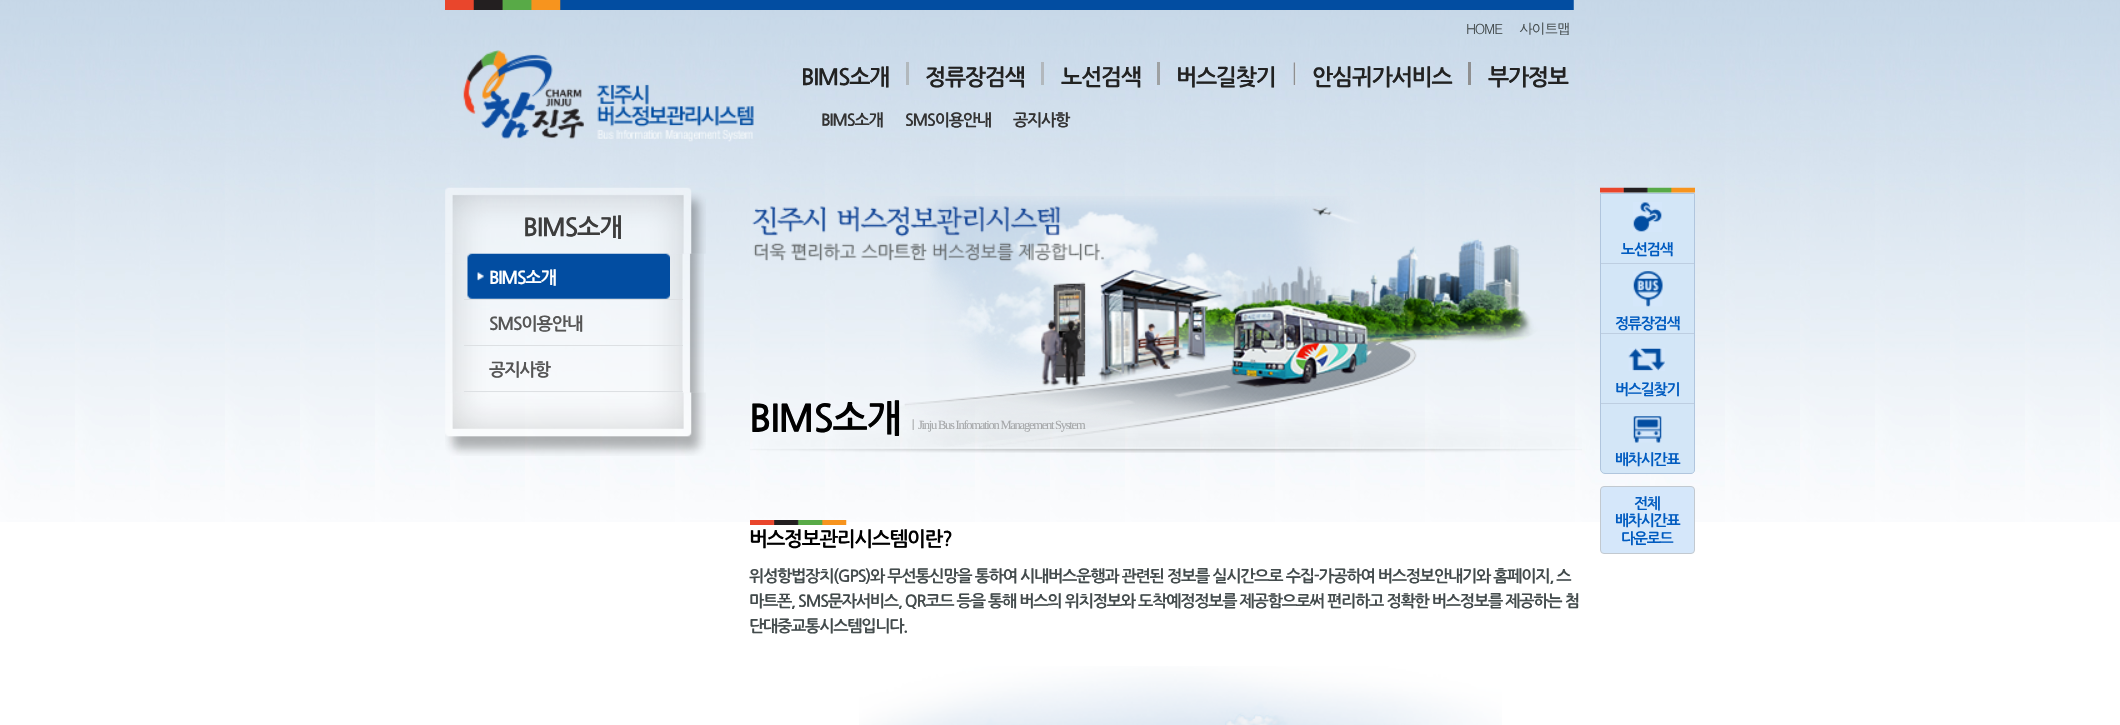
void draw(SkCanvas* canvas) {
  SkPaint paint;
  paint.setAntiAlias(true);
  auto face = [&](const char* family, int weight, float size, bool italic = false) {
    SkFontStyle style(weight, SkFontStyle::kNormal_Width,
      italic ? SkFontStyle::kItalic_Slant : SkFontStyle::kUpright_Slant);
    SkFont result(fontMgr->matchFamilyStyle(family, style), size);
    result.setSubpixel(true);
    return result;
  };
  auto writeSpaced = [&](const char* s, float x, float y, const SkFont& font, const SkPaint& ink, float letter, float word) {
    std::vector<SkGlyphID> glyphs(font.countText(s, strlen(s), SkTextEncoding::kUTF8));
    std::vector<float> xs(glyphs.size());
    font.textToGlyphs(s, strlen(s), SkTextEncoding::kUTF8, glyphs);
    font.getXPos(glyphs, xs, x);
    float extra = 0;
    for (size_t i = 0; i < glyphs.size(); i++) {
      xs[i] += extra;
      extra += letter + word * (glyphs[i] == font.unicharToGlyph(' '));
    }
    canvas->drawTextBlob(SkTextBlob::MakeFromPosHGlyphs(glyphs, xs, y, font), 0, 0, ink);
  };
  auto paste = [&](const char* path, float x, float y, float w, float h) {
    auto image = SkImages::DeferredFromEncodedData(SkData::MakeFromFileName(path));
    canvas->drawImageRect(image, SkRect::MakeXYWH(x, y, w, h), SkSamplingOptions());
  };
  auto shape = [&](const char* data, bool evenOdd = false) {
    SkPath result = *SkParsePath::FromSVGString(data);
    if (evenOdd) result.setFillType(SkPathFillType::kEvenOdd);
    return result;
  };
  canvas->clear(0xffffffff);
  paste("img/1.png", 0, 0, 2120, 522);
  paste("img/2.png", 445, 0, 1129, 10);
  paste("img/3.png", 463, 50, 291, 92);
  {
    const struct { float x, y, w, h; SkColor color; } items[] = {
      {906, 62, 3, 23, 0xffb2b8bd},
      {1041, 62, 3, 23, 0xffb2b8bd},
      {1157, 62, 3, 23, 0xff9ea1a3},
    };
    for (auto [x, y, w, h, color] : items) {
      paint.setColor(color);
      canvas->drawRect(SkRect::MakeXYWH(x, y, w, h), paint);
    }
  }
  paste("img/4.png", 1293, 62, 4, 23);
  paint.setColor(0xff8f8f90);
  canvas->drawRect(SkRect::MakeXYWH(1468, 62, 3, 23), paint);
  paste("img/5.png", 445, 392, 261, 64);
  paste("img/6.png", 445, 187, 261, 67);
  paste("img/7.png", 445, 253, 259, 140);
  paint.setColor(0xffdde0e3);
  canvas->drawRect(SkRect::MakeXYWH(464, 299, 219, 1), paint);
  paste("img/8.png", 467, 253, 203, 46);
  canvas->drawRect(SkRect::MakeXYWH(464, 345, 219, 1), paint);
  canvas->drawRect(SkRect::MakeXYWH(464, 391, 219, 1), paint);
  paste("img/9.png", 750, 196, 832, 257);
  paste("img/10.png", 750, 520, 97, 5);
  paste("img/11.png", 859, 666, 643, 59);
  paste("img/12.png", 1600, 187, 95, 6);
  paint.setColor(0xffd3e6f7);
  canvas->drawPath(shape("M1600.5 193.5H1694.5V470C1694.5 472 1693 473.5 1691 473.5H1605C1602.5 473.5 1600.5 471.5 1600.5 469Z"), paint);
  paint.setStroke(true);
  paint.setStrokeWidth(1);
  paint.setColor(0xffb0c5dd);
  canvas->drawPath(shape("M1600.5 193.5H1694.5V470C1694.5 472 1693 473.5 1691 473.5H1605C1602.5 473.5 1600.5 471.5 1600.5 469Z"), paint);
  paint.setStroke(false);
  paint.setColor(0xffbdcee1);
  canvas->drawRect(SkRect::MakeXYWH(1601, 263, 93, 1), paint);
  paste("img/13.png", 1633, 202, 29, 30);
  canvas->drawRect(SkRect::MakeXYWH(1601, 333, 93, 1), paint);
  paste("img/14.png", 1633, 271, 30, 36);
  canvas->drawRect(SkRect::MakeXYWH(1601, 403, 93, 1), paint);
  paste("img/15.png", 1628, 348, 37, 23);
  paste("img/16.png", 1633, 416, 29, 27);
  paint.setColor(0xffd5e7fa);
  canvas->drawRoundRect(SkRect::MakeXYWH(1600.5f, 486.5f, 94, 67), 3.5f, 3.5f, paint);
  paint.setStroke(true);
  paint.setColor(0xffc2c9d0);
  canvas->drawRoundRect(SkRect::MakeXYWH(1600.5f, 486.5f, 94, 67), 3.5f, 3.5f, paint);
  auto f0 = face("Dotum", 400, 14);
  paint.setStroke(false);
  paint.setColor(0xff434b4c);
  writeSpaced("HOME", 1466, 34, f0, paint, -1.25f, 0);
  writeSpaced("사이트맵", 1519, 34, f0, paint, -1.25f, 0);
  auto f1 = face("NanumGothic", 700, 22.5f);
  paint.setColor(0xff222222);
  {
    const struct { const char* s; float x, y; } items[] = {
      {"BIMS소개", 801, 84},
      {"정류장검색", 925, 84},
      {"노선검색", 1061, 84},
      {"버스길찾기", 1176, 84},
      {"안심귀가서비스", 1312, 84},
      {"부가정보", 1488, 84},
    };
    for (auto [s, x, y] : items) {
      writeSpaced(s, x, y, f1, paint, -1.25f, 0);
    }
  }
  auto f2 = face("NanumGothic", 700, 16.25f);
  paint.setColor(0xff333333);
  {
    const struct { const char* s; float x, y; } items[] = {
      {"BIMS소개", 821, 125},
      {"SMS이용안내", 905, 125},
      {"공지사항", 1013, 125},
    };
    for (auto [s, x, y] : items) {
      writeSpaced(s, x, y, f2, paint, -1.25f, 0);
    }
  }
  auto f3 = face("NanumGothic", 700, 25);
  paint.setColor(0xff3d3d3d);
  writeSpaced("BIMS소개", 523, 235, f3, paint, -1.25f, 0);
  auto f4 = face("NanumGothic", 700, 17.5f);
  paint.setColor(0xffffffff);
  writeSpaced("BIMS소개", 489, 283, f4, paint, -1.25f, 0);
  paint.setColor(0xff555555);
  writeSpaced("SMS이용안내", 489, 329, f4, paint, -1.25f, 0);
  writeSpaced("공지사항", 489, 375, f4, paint, -1.25f, 0);
  auto f5 = face("NanumGothic", 700, 37.5f);
  paint.setColor(0xff000000);
  writeSpaced("BIMS소개", 749, 430, f5, paint, -1.25f, 0);
  auto f6 = face("WenQuanYi Zen Hei", 500, 12.5f);
  paint.setColor(0xffa6a8aa);
  writeSpaced("ㅣ", 907, 429, f6, paint, -1.25f, 0);
  auto f7 = face("Liberation Serif", 400, 12.5f);
  writeSpaced("Jinju Bus Infomation Management System", 918, 429, f7, paint, -1.25f, 0);
  auto f8 = face("NanumGothic", 700, 20);
  paint.setColor(0xff000000);
  writeSpaced("버스정보관리시스템이란?", 749, 545, f8, paint, -1.25f, 0);
  paint.setColor(0xff434b4c);
  {
    const struct { const char* s; float x, y; } items[] = {
      {"위성항법장치(GPS)와 무선통신망을 통하여 시내버스운행과 관련된 정보를 실시간으로 수집-가공하여 버스정보안내기와 홈페이지, 스", 749, 581},
      {"마트폰, SMS문자서비스, QR코드 등을 통해 버스의 위치정보와 도착예정정보를 제공함으로써 편리하고 정확한 버스정보를 제공하는 첨", 749, 606},
      {"단대중교통시스템입니다.", 749, 631},
    };
    for (auto [s, x, y] : items) {
      writeSpaced(s, x, y, f2, paint, -1.25f, 0);
    }
  }
  auto f9 = face("NanumGothic", 700, 15);
  paint.setColor(0xff005bc0);
  {
    const struct { const char* s; float x, y; } items[] = {
      {"노선검색", 1621, 254},
      {"정류장검색", 1615, 328},
      {"버스길찾기", 1615, 394},
      {"배차시간표", 1615, 464},
      {"전체", 1634, 508},
      {"배차시간표", 1615, 525},
      {"다운로드", 1621, 543},
    };
    for (auto [s, x, y] : items) {
      writeSpaced(s, x, y, f9, paint, -1.25f, 0);
    }
  }
}
